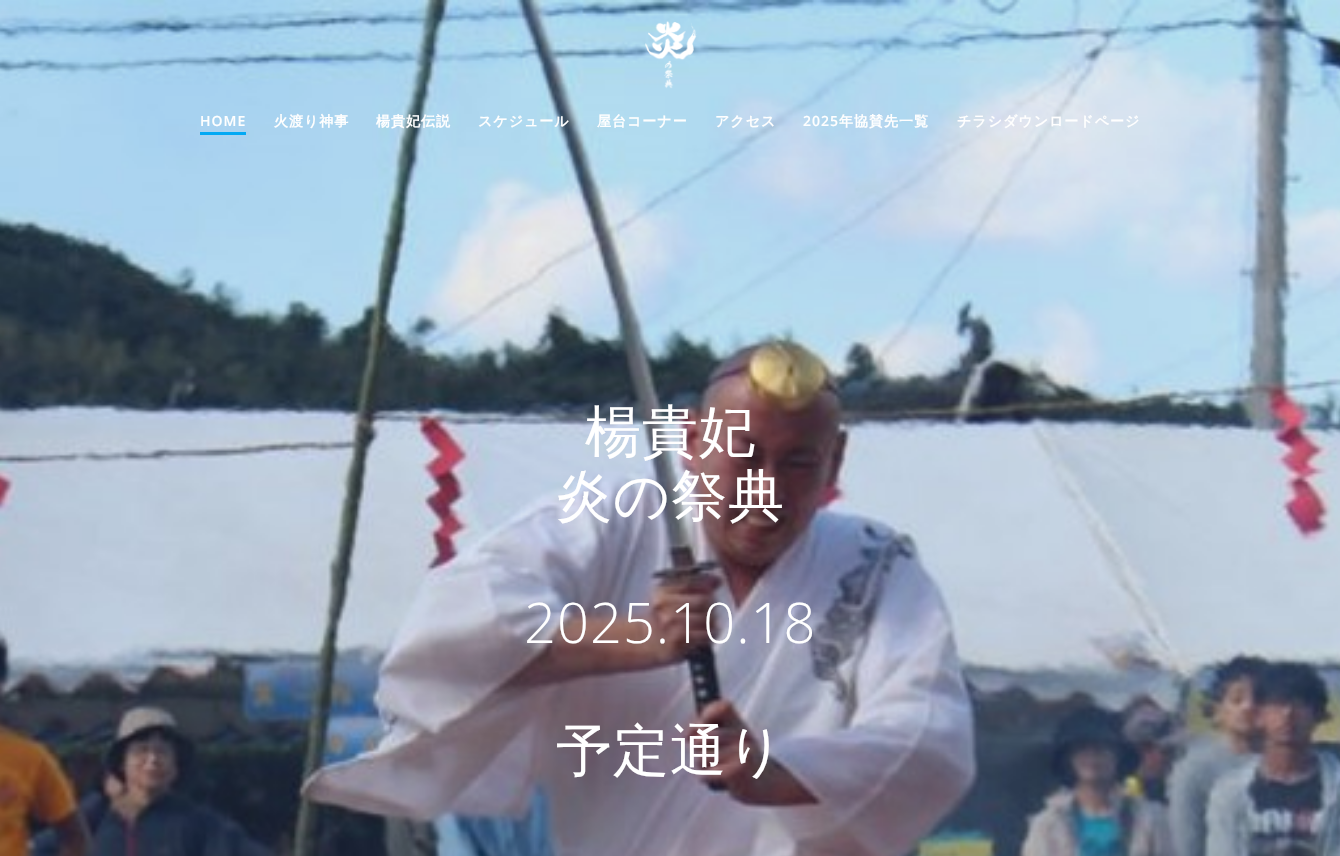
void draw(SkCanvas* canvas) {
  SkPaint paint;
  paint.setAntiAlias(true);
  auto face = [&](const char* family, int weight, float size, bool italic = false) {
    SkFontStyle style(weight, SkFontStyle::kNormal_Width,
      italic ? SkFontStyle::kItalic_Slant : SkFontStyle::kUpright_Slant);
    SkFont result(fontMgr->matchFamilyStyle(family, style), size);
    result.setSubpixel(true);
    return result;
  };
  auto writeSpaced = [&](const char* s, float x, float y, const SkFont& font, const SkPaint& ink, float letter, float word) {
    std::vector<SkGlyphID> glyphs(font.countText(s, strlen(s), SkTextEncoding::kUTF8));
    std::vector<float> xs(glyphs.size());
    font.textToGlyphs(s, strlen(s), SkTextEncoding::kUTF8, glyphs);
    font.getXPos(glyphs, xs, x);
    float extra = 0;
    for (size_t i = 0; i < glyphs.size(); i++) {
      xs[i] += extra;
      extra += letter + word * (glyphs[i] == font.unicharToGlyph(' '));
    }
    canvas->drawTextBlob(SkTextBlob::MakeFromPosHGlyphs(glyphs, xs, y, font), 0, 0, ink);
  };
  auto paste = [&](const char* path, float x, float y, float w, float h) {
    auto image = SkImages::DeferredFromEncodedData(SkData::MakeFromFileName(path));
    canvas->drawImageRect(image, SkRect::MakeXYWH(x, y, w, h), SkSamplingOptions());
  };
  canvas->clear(0xffffffff);
  paste("img/2.png", 0, 0, 1340, 856);
  paste("img/1.png", 645, 21, 52, 68);
  paint.setColor(0xff03a9f4);
  canvas->drawRect(SkRect::MakeXYWH(200, 132, 46, 3), paint);
  auto f0 = face("Open Sans", 600, 14);
  paint.setColor(0xffffffff);
  writeSpaced("HOME", 200, 126, f0, paint, 1, 0);
  auto f1 = face("WenQuanYi Zen Hei", 700, 14);
  {
    const struct { const char* s; float x, y; } items[] = {
      {"火渡り神事", 274, 126},
      {"楊貴妃伝説", 376, 126},
      {"スケジュール", 478, 126},
      {"屋台コーナー", 597, 126},
      {"アクセス", 715, 126},
    };
    for (auto [s, x, y] : items) {
      writeSpaced(s, x, y, f1, paint, 1, 0);
    }
  }
  writeSpaced("2025", 803, 126, f0, paint, 1, 0);
  writeSpaced("年協賛先一覧", 839, 126, f1, paint, 1, 0);
  writeSpaced("チラシダウンロードページ", 957, 126, f1, paint, 1, 0);
  auto f2 = face("WenQuanYi Zen Hei", 500, 56);
  writeSpaced("楊貴妃", 585, 451, f2, paint, 1, 0);
  writeSpaced("炎の祭典", 556, 515, f2, paint, 1, 0);
  auto f3 = face("Open Sans", 300, 56);
  writeSpaced("2025.10.18", 524, 643, f3, paint, 1, 0);
  writeSpaced("予定通り", 556, 770, f2, paint, 1, 0);
}
